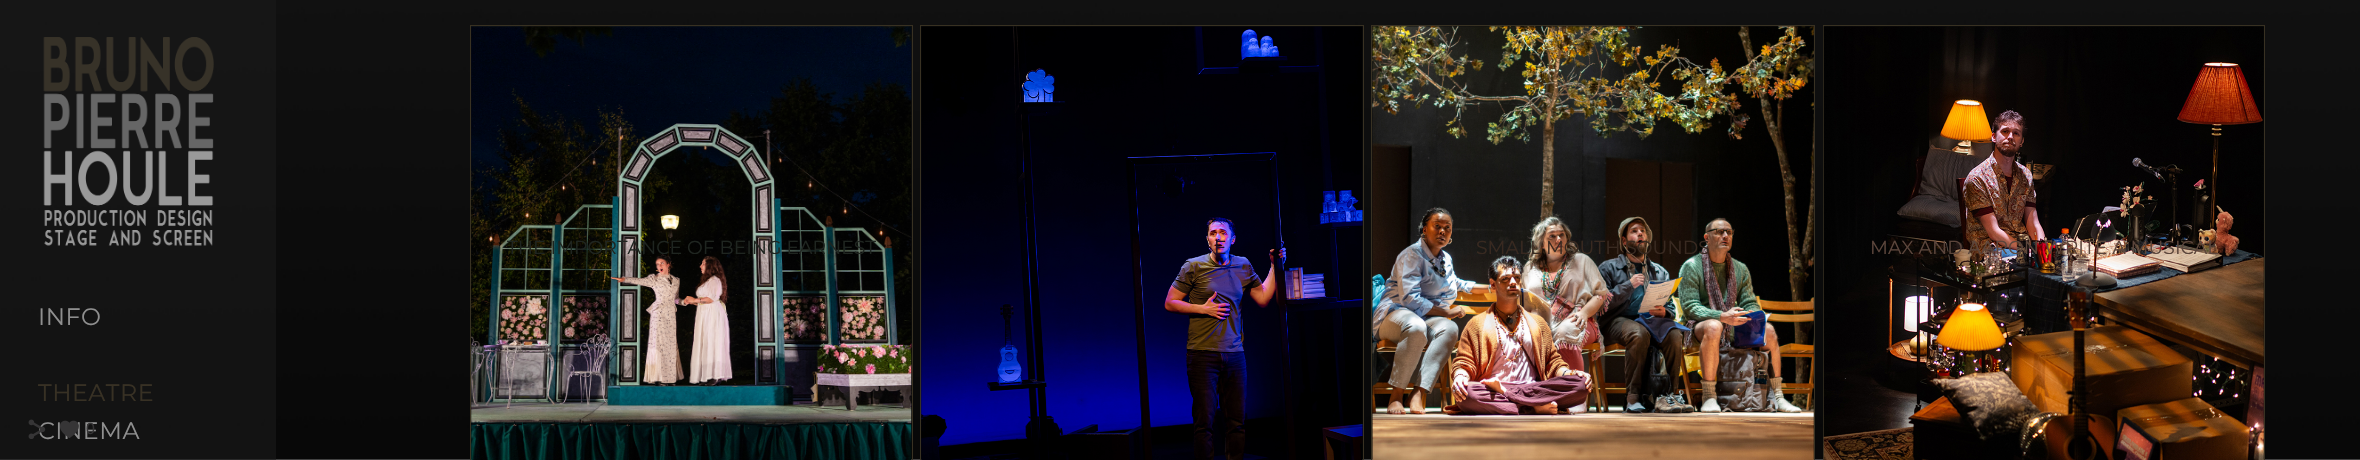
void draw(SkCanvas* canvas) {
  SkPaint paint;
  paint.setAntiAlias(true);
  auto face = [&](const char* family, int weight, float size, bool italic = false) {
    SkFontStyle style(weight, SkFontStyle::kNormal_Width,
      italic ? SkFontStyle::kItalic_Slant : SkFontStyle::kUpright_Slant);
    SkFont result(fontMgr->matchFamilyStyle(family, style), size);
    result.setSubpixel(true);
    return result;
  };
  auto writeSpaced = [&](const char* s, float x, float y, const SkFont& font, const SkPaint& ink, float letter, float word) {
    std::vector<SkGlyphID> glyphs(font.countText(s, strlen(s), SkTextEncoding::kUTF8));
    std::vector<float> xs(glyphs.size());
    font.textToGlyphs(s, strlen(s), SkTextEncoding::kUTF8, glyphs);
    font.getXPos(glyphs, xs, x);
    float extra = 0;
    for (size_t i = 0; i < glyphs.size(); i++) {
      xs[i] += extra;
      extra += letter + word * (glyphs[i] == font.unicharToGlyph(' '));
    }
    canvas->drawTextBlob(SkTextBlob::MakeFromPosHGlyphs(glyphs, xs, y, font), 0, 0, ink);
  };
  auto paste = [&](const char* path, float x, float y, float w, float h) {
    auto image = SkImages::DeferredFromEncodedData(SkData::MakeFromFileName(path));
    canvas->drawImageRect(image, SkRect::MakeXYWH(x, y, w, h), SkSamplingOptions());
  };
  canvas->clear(0xffffffff);
  paste("img/1.png", 0, 0, 2360, 460);
  paint.setStroke(true);
  paint.setStrokeWidth(1);
  paint.setColor(0xff383122);
  canvas->drawRect(SkRect::MakeXYWH(470.5f, 25.5f, 442, 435), paint);
  paste("img/2.png", 471, 26, 441, 434);
  canvas->drawRect(SkRect::MakeXYWH(920.5f, 25.5f, 443, 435), paint);
  paste("img/3.png", 921, 26, 442, 434);
  canvas->drawRect(SkRect::MakeXYWH(1371.5f, 25.5f, 443, 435), paint);
  paste("img/4.png", 1372, 26, 442, 434);
  canvas->drawRect(SkRect::MakeXYWH(1823.5f, 25.5f, 441, 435), paint);
  paste("img/5.png", 1823, 26, 441, 434);
  paint.setStroke(false);
  paint.setColor(0x99191919);
  canvas->drawRect(SkRect::MakeXYWH(0, 0, 276, 460), paint);
  paste("img/6.png", 43, 37, 171, 209);
  auto f0 = face("Montserrat", 400, 18.75f);
  paint.setColor(0xff1f2520);
  canvas->drawString("THE IMPORTANCE OF BEING EARNEST", 507, 254, f0, paint);
  paint.setColor(0xff180d29);
  canvas->drawString("E", 1214, 254, f0, paint);
  paint.setColor(0xff382920);
  canvas->drawString("SMALL MOUTH SOUNDS", 1476, 254, f0, paint);
  paint.setColor(0xff5b453b);
  canvas->drawString("MAX AND AARON WRITE A MUSICAL", 1870, 254, f0, paint);
  auto f1 = face("Montserrat", 400, 23.75f);
  paint.setColor(0xff8f8f8f);
  writeSpaced("INFO", 38, 325, f1, paint, 0.5f, 0);
  paint.setColor(0xff383124);
  writeSpaced("THEATRE", 38, 401, f1, paint, 0.5f, 0);
  paint.setColor(0xff8f8f8f);
  writeSpaced("CINEMA", 38, 439, f1, paint, 0.5f, 0);
  paste("img/7.png", 28, 419, 18, 20);
  paste("img/8.png", 60, 420, 19, 18);
  auto f2 = face("Liberation Sans", 400, 16);
  paint.setColor(0xff363536);
  canvas->drawString("0", 86, 434, f2, paint);
}
